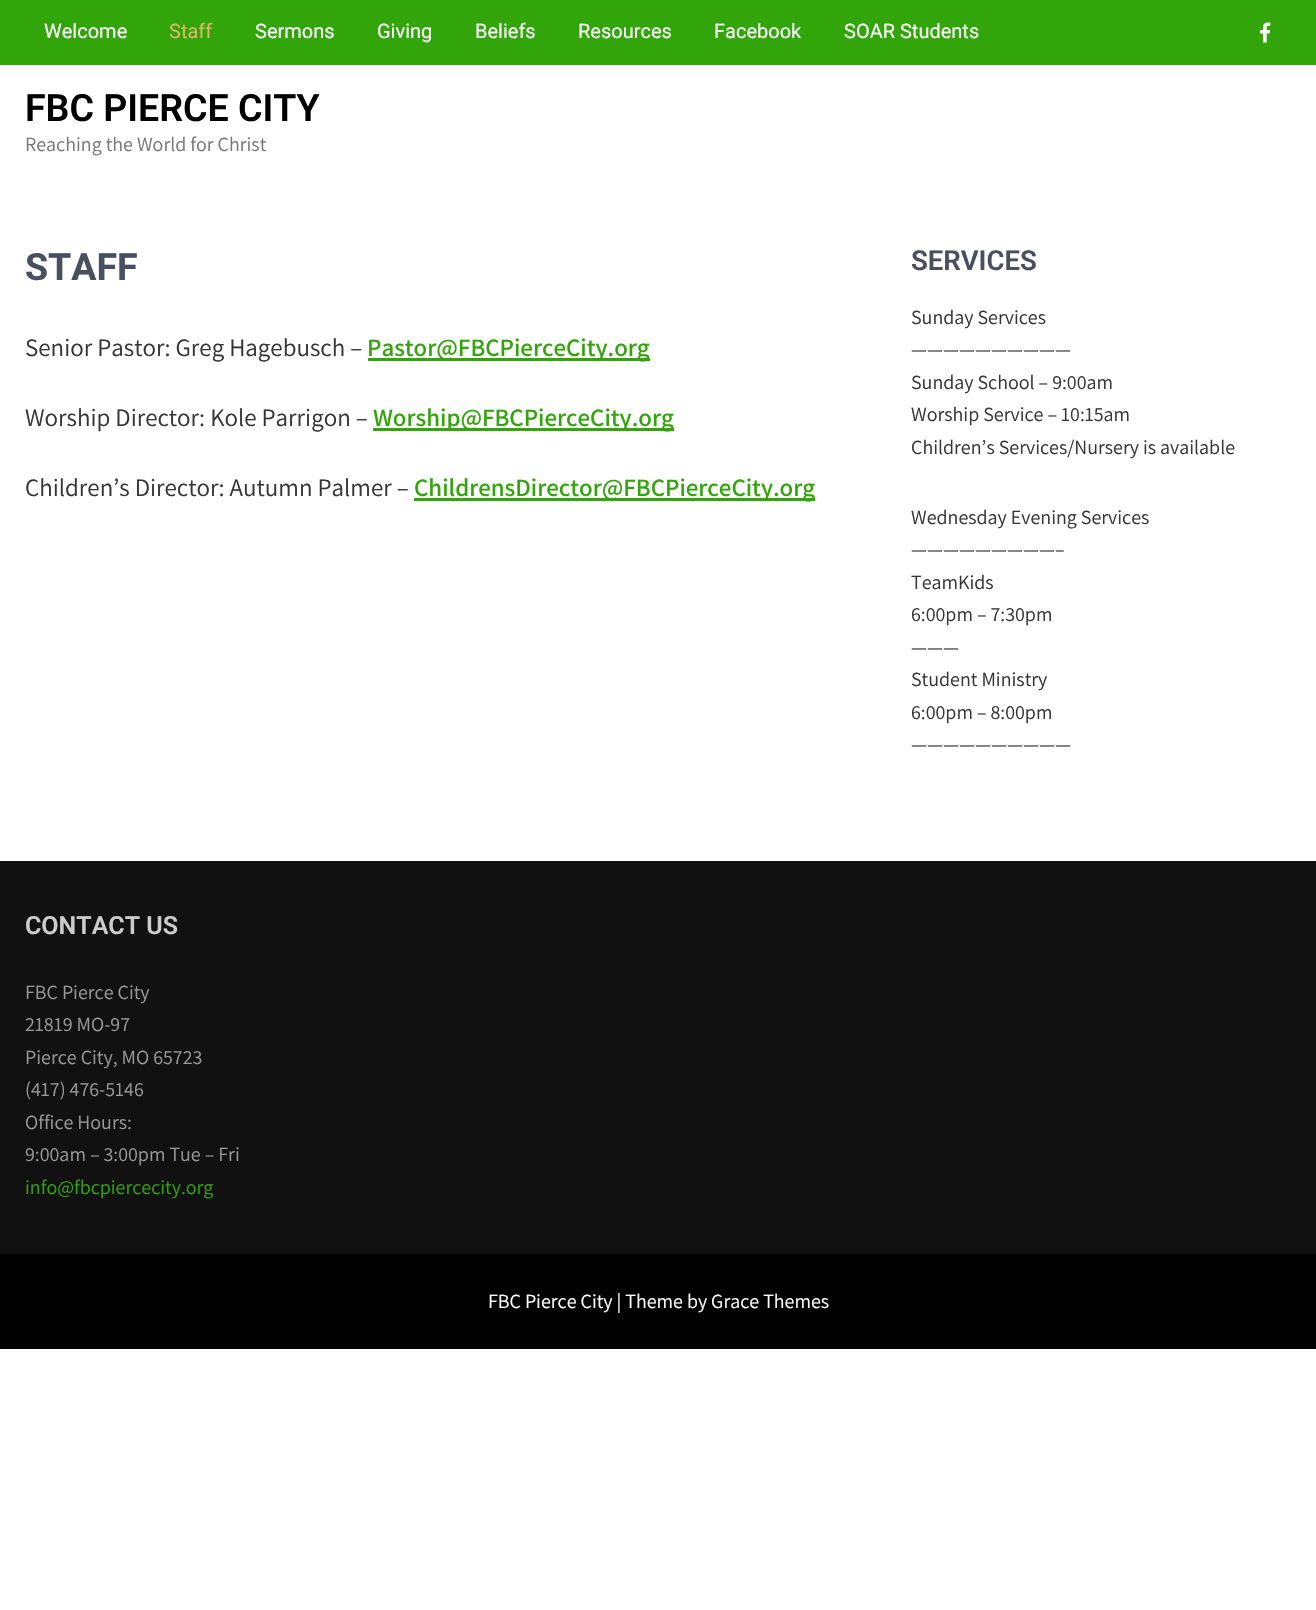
void draw(SkCanvas* canvas) {
  SkPaint paint;
  paint.setAntiAlias(true);
  auto face = [&](const char* family, int weight, float size, bool italic = false) {
    SkFontStyle style(weight, SkFontStyle::kNormal_Width,
      italic ? SkFontStyle::kItalic_Slant : SkFontStyle::kUpright_Slant);
    SkFont result(fontMgr->matchFamilyStyle(family, style), size);
    result.setSubpixel(true);
    return result;
  };
  auto paste = [&](const char* path, float x, float y, float w, float h) {
    auto image = SkImages::DeferredFromEncodedData(SkData::MakeFromFileName(path));
    canvas->drawImageRect(image, SkRect::MakeXYWH(x, y, w, h), SkSamplingOptions());
  };
  canvas->clear(0xffffffff);
  paint.setColor(0xff32a50b);
  canvas->drawRect(SkRect::MakeXYWH(0, 0, 1316, 65), paint);
  paste("img/1.png", 1260, 22, 11, 21);
  {
    const struct { float x, y, w, h; SkColor color; } items[] = {
      {368, 358, 282, 3, 0xff32a50b},
      {373, 428, 301, 3, 0xff32a50b},
      {414, 498, 401, 3, 0xff32a50b},
      {0, 861, 1316, 393, 0xff111111},
      {0, 1254, 1316, 95, 0xff000000},
    };
    for (auto [x, y, w, h, color] : items) {
      paint.setColor(color);
      canvas->drawRect(SkRect::MakeXYWH(x, y, w, h), paint);
    }
  }
  auto f0 = face("Roboto", 400, 20);
  paint.setColor(0xffffffff);
  canvas->drawString("Welcome", 44, 38, f0, paint);
  paint.setColor(0xffddb667);
  canvas->drawString("Staff", 169, 38, f0, paint);
  paint.setColor(0xffffffff);
  {
    const struct { const char* s; float x, y; } items[] = {
      {"Sermons", 255, 38},
      {"Giving", 377, 38},
      {"Beliefs", 475, 38},
      {"Resources", 578, 38},
      {"Facebook", 714, 38},
      {"SOAR Students", 844, 38},
    };
    for (auto [s, x, y] : items) {
      canvas->drawString(s, x, y, f0, paint);
    }
  }
  auto f1 = face("Roboto", 600, 37.5f);
  paint.setColor(0xff000000);
  canvas->drawString("FBC PIERCE CITY", 25, 121, f1, paint);
  auto f2 = face("Assistant", 400, 20);
  paint.setColor(0xff777777);
  canvas->drawString("Reaching the World for Christ", 25, 151, f2, paint);
  auto f3 = face("Roboto", 700, 37.5f);
  paint.setColor(0xff484f5e);
  canvas->drawString("STAFF", 25, 280, f3, paint);
  auto f4 = face("Assistant", 400, 25);
  paint.setColor(0xff363636);
  canvas->drawString("Senior Pastor: Greg Hagebusch –", 25, 356, f4, paint);
  auto f5 = face("Assistant", 600, 25);
  paint.setColor(0xff32a50b);
  canvas->drawString("Pastor@FBCPierceCity.org", 367, 356, f5, paint);
  paint.setColor(0xff363636);
  canvas->drawString("Worship Director: Kole Parrigon –", 25, 426, f4, paint);
  paint.setColor(0xff32a50b);
  canvas->drawString("Worship@FBCPierceCity.org", 373, 426, f5, paint);
  paint.setColor(0xff363636);
  canvas->drawString("Children’s Director: Autumn Palmer –", 25, 496, f4, paint);
  paint.setColor(0xff32a50b);
  canvas->drawString("ChildrensDirector@FBCPierceCity.org", 414, 496, f5, paint);
  auto f6 = face("Roboto", 600, 27.5f);
  paint.setColor(0xff484f5e);
  canvas->drawString("SERVICES", 911, 270, f6, paint);
  paint.setColor(0xff363636);
  {
    const struct { const char* s; float x, y; } items[] = {
      {"Sunday Services", 911, 324},
      {"——————————", 911, 356},
      {"Sunday School – 9:00am", 911, 389},
      {"Worship Service – 10:15am", 911, 421},
      {"Children’s Services/Nursery is available", 911, 454},
      {"Wednesday Evening Services", 911, 524},
      {"—————————–", 911, 556},
      {"TeamKids", 911, 589},
      {"6:00pm – 7:30pm", 911, 621},
      {"———", 911, 654},
      {"Student Ministry", 911, 686},
      {"6:00pm – 8:00pm", 911, 719},
      {"——————————", 911, 751},
    };
    for (auto [s, x, y] : items) {
      canvas->drawString(s, x, y, f2, paint);
    }
  }
  auto f7 = face("Roboto", 600, 25);
  paint.setColor(0xffcccccc);
  canvas->drawString("CONTACT US", 25, 934, f7, paint);
  paint.setColor(0xff999999);
  {
    const struct { const char* s; float x, y; } items[] = {
      {"FBC Pierce City", 25, 999},
      {"21819 MO-97", 25, 1031},
      {"Pierce City, MO 65723", 25, 1064},
      {"(417) 476-5146", 25, 1096},
      {"Office Hours:", 25, 1129},
      {"9:00am – 3:00pm Tue – Fri", 25, 1161},
    };
    for (auto [s, x, y] : items) {
      canvas->drawString(s, x, y, f2, paint);
    }
  }
  paint.setColor(0xff32a50b);
  canvas->drawString("info@fbcpiercecity.org", 25, 1194, f2, paint);
  paint.setColor(0xffffffff);
  canvas->drawString("FBC Pierce City | Theme by Grace Themes", 488, 1308, f2, paint);
}
